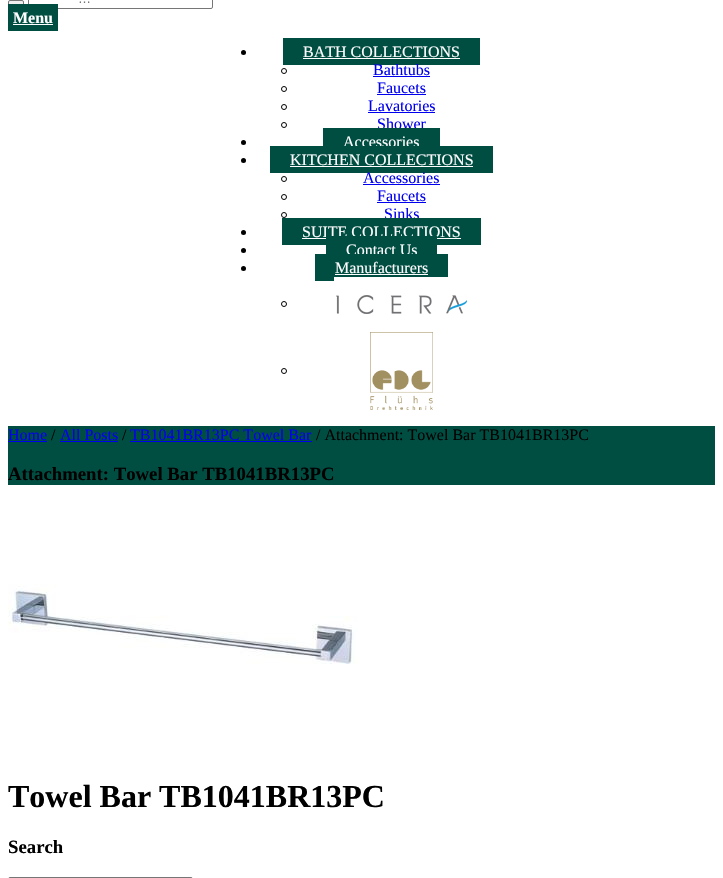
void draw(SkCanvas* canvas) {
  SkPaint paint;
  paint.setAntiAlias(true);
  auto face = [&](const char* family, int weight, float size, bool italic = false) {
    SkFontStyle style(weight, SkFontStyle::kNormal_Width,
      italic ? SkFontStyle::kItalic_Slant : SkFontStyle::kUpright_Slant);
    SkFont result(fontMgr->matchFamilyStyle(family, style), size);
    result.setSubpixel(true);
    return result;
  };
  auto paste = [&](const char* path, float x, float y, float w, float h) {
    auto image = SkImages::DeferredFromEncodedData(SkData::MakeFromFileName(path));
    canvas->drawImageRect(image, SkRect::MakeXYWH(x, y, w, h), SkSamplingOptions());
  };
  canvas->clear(0xffffffff);
  paint.setColor(0xffefefef);
  canvas->drawRoundRect(SkRect::MakeXYWH(8.5f, 0.5f, 15, 5), 1.5f, 1.5f, paint);
  paint.setStroke(true);
  paint.setStrokeWidth(1);
  paint.setColor(0xff767676);
  canvas->drawRoundRect(SkRect::MakeXYWH(8.5f, 0.5f, 15, 5), 1.5f, 1.5f, paint);
  canvas->drawRoundRect(SkRect::MakeXYWH(28.5f, -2.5f, 184, 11), 1.5f, 1.5f, paint);
  paint.setStroke(false);
  paint.setColor(0xff004d42);
  canvas->drawRect(SkRect::MakeXYWH(8, 4, 50, 27), paint);
  paint.setColor(0xffffffff);
  canvas->drawRect(SkRect::MakeXYWH(13, 24, 40, 1), paint);
  paint.setColor(0xff000000);
  canvas->drawCircle(243.5f, 52.5f, 2.5f, paint);
  paint.setColor(0xff004d42);
  canvas->drawRect(SkRect::MakeXYWH(283, 38, 197, 27), paint);
  paint.setColor(0xffffffff);
  canvas->drawRect(SkRect::MakeXYWH(303, 58, 157, 1), paint);
  paint.setStroke(true);
  paint.setColor(0xff000000);
  canvas->drawCircle(284, 71, 2.5f, paint);
  paint.setStroke(false);
  paint.setColor(0xff0000ee);
  canvas->drawRect(SkRect::MakeXYWH(373, 76, 57, 1), paint);
  paint.setStroke(true);
  paint.setColor(0xff000000);
  canvas->drawCircle(284, 89, 2.5f, paint);
  paint.setStroke(false);
  paint.setColor(0xff0000ee);
  canvas->drawRect(SkRect::MakeXYWH(377, 94, 49, 1), paint);
  paint.setStroke(true);
  paint.setColor(0xff000000);
  canvas->drawCircle(284, 107, 2.5f, paint);
  paint.setStroke(false);
  paint.setColor(0xff0000ee);
  canvas->drawRect(SkRect::MakeXYWH(368, 112, 67, 1), paint);
  paint.setStroke(true);
  paint.setColor(0xff000000);
  canvas->drawCircle(284, 125, 2.5f, paint);
  paint.setStroke(false);
  canvas->drawCircle(243.5f, 142.5f, 2.5f, paint);
  canvas->drawCircle(243.5f, 160.5f, 2.5f, paint);
  paint.setStroke(true);
  canvas->drawCircle(284, 179, 2.5f, paint);
  paint.setStroke(false);
  paint.setColor(0xff0000ee);
  canvas->drawRect(SkRect::MakeXYWH(363, 184, 77, 1), paint);
  paint.setStroke(true);
  paint.setColor(0xff000000);
  canvas->drawCircle(284, 197, 2.5f, paint);
  paint.setStroke(false);
  paint.setColor(0xff0000ee);
  canvas->drawRect(SkRect::MakeXYWH(377, 202, 49, 1), paint);
  paint.setStroke(true);
  paint.setColor(0xff000000);
  canvas->drawCircle(284, 215, 2.5f, paint);
  paint.setStroke(false);
  canvas->drawCircle(243.5f, 232.5f, 2.5f, paint);
  canvas->drawCircle(243.5f, 250.5f, 2.5f, paint);
  canvas->drawCircle(243.5f, 268.5f, 2.5f, paint);
  paint.setStroke(true);
  canvas->drawCircle(284, 304, 2.5f, paint);
  canvas->drawCircle(284, 371, 2.5f, paint);
  paste("img/2.png", 370, 332, 63, 78);
  paint.setStroke(false);
  {
    const struct { float x, y, w, h; SkColor color; } items[] = {
      {8, 426, 707, 59, 0xff004d42},
      {8, 441, 39, 1, 0xff0000ee},
      {60, 441, 58, 1, 0xff0000ee},
      {130, 441, 182, 1, 0xff0000ee},
    };
    for (auto [x, y, w, h, color] : items) {
      paint.setColor(color);
      canvas->drawRect(SkRect::MakeXYWH(x, y, w, h), paint);
    }
  }
  paste("img/3.png", 8, 584, 350, 80);
  paint.setStroke(true);
  paint.setColor(0xff767676);
  canvas->drawRoundRect(SkRect::MakeXYWH(8.5f, 877.5f, 184, 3), 1.5f, 1.5f, paint);
  auto f0 = face("Liberation Sans", 400, 13);
  paint.setStroke(false);
  paint.setColor(0xff757575);
  canvas->drawString("…", 78, 3, f0, paint);
  auto f1 = face("Liberation Serif", 700, 16);
  paint.setColor(0xffffffff);
  canvas->drawString("Menu", 13, 23, f1, paint);
  auto f2 = face("Liberation Serif", 400, 16);
  canvas->drawString("BATH COLLECTIONS", 303, 57, f2, paint);
  paint.setColor(0xff0000ee);
  {
    const struct { const char* s; float x, y; } items[] = {
      {"Bathtubs", 373, 75},
      {"Faucets", 377, 93},
      {"Lavatories", 368, 111},
      {"Shower", 377, 129},
    };
    for (auto [s, x, y] : items) {
      canvas->drawString(s, x, y, f2, paint);
    }
  }
  paint.setColor(0xff004d42);
  canvas->drawRect(SkRect::MakeXYWH(323, 128, 117, 18), paint);
  paint.setColor(0xffffffff);
  canvas->drawString("Accessories", 343, 147, f2, paint);
  paint.setColor(0xff004d42);
  canvas->drawRect(SkRect::MakeXYWH(270, 146, 223, 27), paint);
  paint.setColor(0xffffffff);
  canvas->drawString("KITCHEN COLLECTIONS", 290, 165, f2, paint);
  canvas->drawRect(SkRect::MakeXYWH(290, 166, 183, 1), paint);
  paint.setColor(0xff0000ee);
  {
    const struct { const char* s; float x, y; } items[] = {
      {"Accessories", 363, 183},
      {"Faucets", 377, 201},
      {"Sinks", 384, 219},
    };
    for (auto [s, x, y] : items) {
      canvas->drawString(s, x, y, f2, paint);
    }
  }
  paint.setColor(0xff004d42);
  canvas->drawRect(SkRect::MakeXYWH(282, 218, 199, 27), paint);
  paint.setColor(0xffffffff);
  canvas->drawString("SUITE COLLECTIONS", 302, 237, f2, paint);
  canvas->drawRect(SkRect::MakeXYWH(302, 238, 159, 1), paint);
  paint.setColor(0xff004d42);
  canvas->drawRect(SkRect::MakeXYWH(326, 236, 111, 18), paint);
  paint.setColor(0xffffffff);
  canvas->drawString("Contact Us", 346, 255, f2, paint);
  paint.setColor(0xff004d42);
  canvas->drawRect(SkRect::MakeXYWH(315, 254, 133, 27), paint);
  paint.setColor(0xffffffff);
  canvas->drawString("Manufacturers", 335, 273, f2, paint);
  canvas->drawRect(SkRect::MakeXYWH(335, 274, 93, 1), paint);
  paste("img/1.png", 334, 277, 133, 37);
  paint.setColor(0xff0000ee);
  canvas->drawString("Home", 8, 440, f2, paint);
  paint.setColor(0xff000000);
  canvas->drawString("/", 51, 440, f2, paint);
  paint.setColor(0xff0000ee);
  canvas->drawString("All Posts", 60, 440, f2, paint);
  paint.setColor(0xff000000);
  canvas->drawString("/", 122, 440, f2, paint);
  paint.setColor(0xff0000ee);
  canvas->drawString("TB1041BR13PC Towel Bar", 130, 440, f2, paint);
  paint.setColor(0xff000000);
  canvas->drawString("/ Attachment: Towel Bar TB1041BR13PC", 316, 440, f2, paint);
  auto f3 = face("Liberation Serif", 700, 18.75f);
  canvas->drawString("Attachment: Towel Bar TB1041BR13PC", 8, 480, f3, paint);
  auto f4 = face("Liberation Serif", 700, 32);
  canvas->drawString("Towel Bar TB1041BR13PC", 8, 807, f4, paint);
  canvas->drawString("Search", 8, 853, f3, paint);
}
